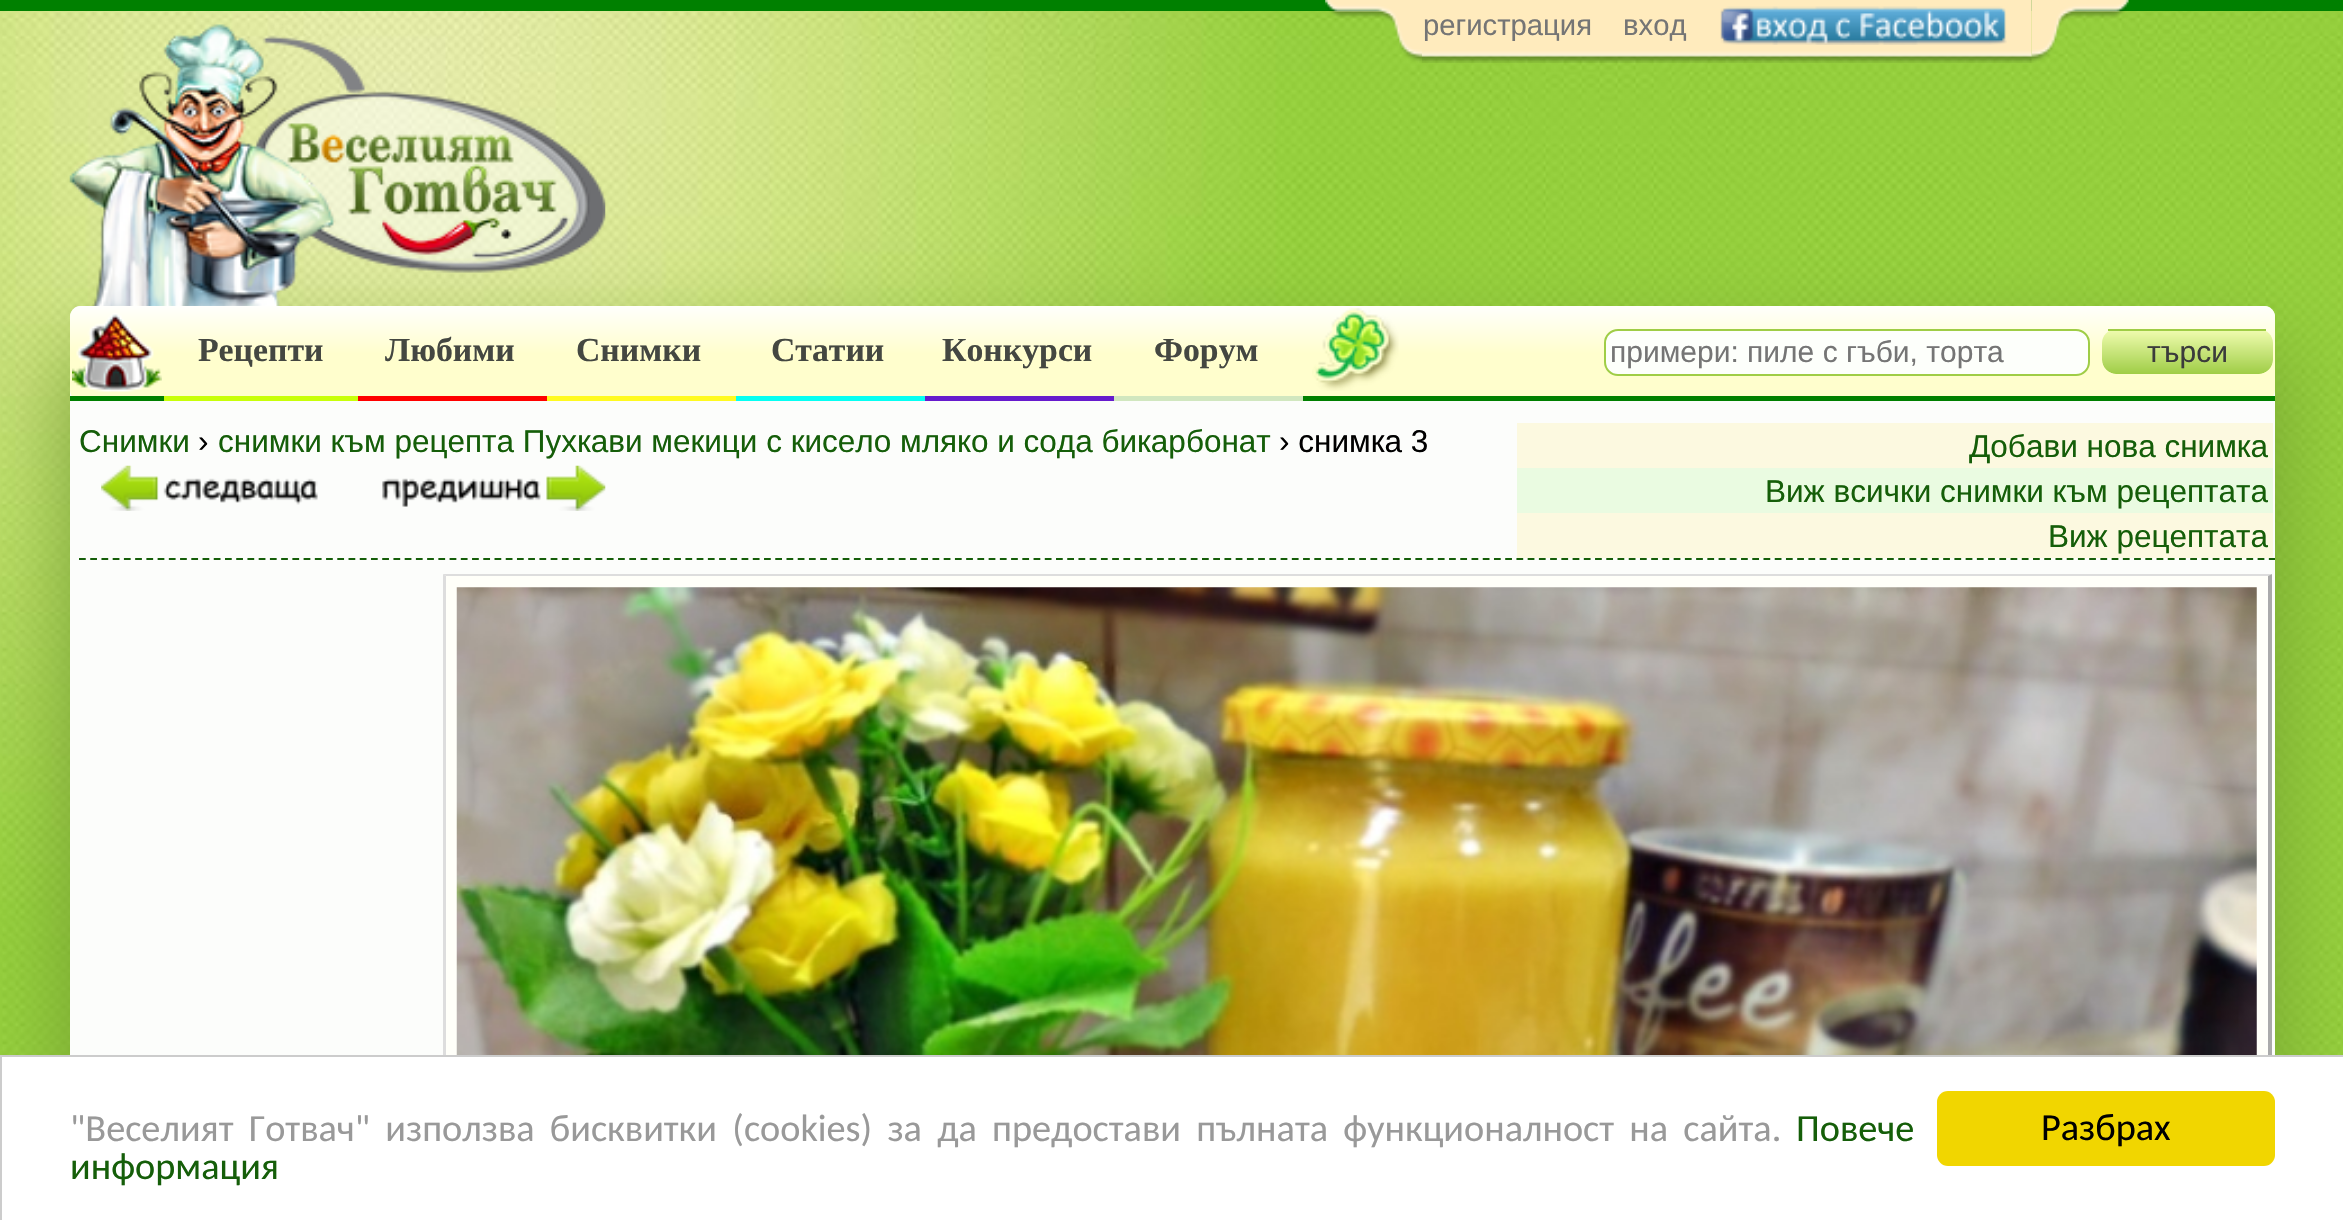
void draw(SkCanvas* canvas) {
  SkPaint paint;
  paint.setAntiAlias(true);
  auto face = [&](const char* family, int weight, float size, bool italic = false) {
    SkFontStyle style(weight, SkFontStyle::kNormal_Width,
      italic ? SkFontStyle::kItalic_Slant : SkFontStyle::kUpright_Slant);
    SkFont result(fontMgr->matchFamilyStyle(family, style), size);
    result.setSubpixel(true);
    return result;
  };
  auto writeSpaced = [&](const char* s, float x, float y, const SkFont& font, const SkPaint& ink, float letter, float word) {
    std::vector<SkGlyphID> glyphs(font.countText(s, strlen(s), SkTextEncoding::kUTF8));
    std::vector<float> xs(glyphs.size());
    font.textToGlyphs(s, strlen(s), SkTextEncoding::kUTF8, glyphs);
    font.getXPos(glyphs, xs, x);
    float extra = 0;
    for (size_t i = 0; i < glyphs.size(); i++) {
      xs[i] += extra;
      extra += letter + word * (glyphs[i] == font.unicharToGlyph(' '));
    }
    canvas->drawTextBlob(SkTextBlob::MakeFromPosHGlyphs(glyphs, xs, y, font), 0, 0, ink);
  };
  auto paste = [&](const char* path, float x, float y, float w, float h) {
    auto image = SkImages::DeferredFromEncodedData(SkData::MakeFromFileName(path));
    canvas->drawImageRect(image, SkRect::MakeXYWH(x, y, w, h), SkSamplingOptions());
  };
  auto shape = [&](const char* data, bool evenOdd = false) {
    SkPath result = *SkParsePath::FromSVGString(data);
    if (evenOdd) result.setFillType(SkPathFillType::kEvenOdd);
    return result;
  };
  canvas->clear(0xffffffff);
  paint.setColor(0xff008000);
  canvas->drawRect(SkRect::MakeXYWH(0, 0, 2343, 11), paint);
  paste("img/1.png", 0, 11, 2343, 1044);
  paint.setColor(0xff75a230);
  paint.setMaskFilter(SkMaskFilter::MakeBlur(kNormal_SkBlurStyle, 45));
  canvas->drawRoundRect(SkRect::MakeXYWH(68, 349, 2209, 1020), 14, 14, paint);
  paint.setMaskFilter(nullptr);
  paste("img/2.png", 69, 24, 537, 282);
  paste("img/3.png", 1325, 0, 97, 63);
  paste("img/4.png", 1422, 0, 610, 63);
  paste("img/5.png", 1720, 6, 287, 39);
  paste("img/6.png", 2031, 0, 98, 63);
  paint.setColor(0xfffcfdfb);
  canvas->drawRoundRect(SkRect::MakeXYWH(70, 306, 2205, 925), 11, 11, paint);
  {
    const SkColor colors[] = {0xfffffffd, 0xfffffecd, 0xfffffecd};
    const float stops[] = {0, 0.5f, 1};
    const SkPoint ends[] = {{1172, 306}, {1172, 401}};
    paint.setShader(SkGradientShader::MakeLinear(ends, colors, stops, 3, SkTileMode::kClamp));
    paint.setAlpha(255);
  }
  canvas->drawRoundRect(SkRect::MakeXYWH(70, 306, 2205, 95), 11, 11, paint);
  paint.setShader(nullptr);
  paint.setColor(0xff008000);
  canvas->drawRect(SkRect::MakeXYWH(70, 396, 2205, 5), paint);
  paste("img/7.png", 72, 313, 90, 79);
  {
    const struct { float x, y, w, h; SkColor color; } items[] = {
      {1109, 396, 194, 5, 0xffd1e7bf},
      {920, 396, 194, 5, 0xff661bcd},
      {731, 396, 194, 5, 0xff06fff2},
      {542, 396, 194, 5, 0xfffffa20},
      {353, 396, 194, 5, 0xffff0000},
      {164, 396, 194, 5, 0xffc8ff09},
    };
    for (auto [x, y, w, h, color] : items) {
      paint.setColor(color);
      canvas->drawRect(SkRect::MakeXYWH(x, y, w, h), paint);
    }
  }
  paste("img/8.png", 1312, 308, 87, 83);
  paint.setColor(0xfffdfffb);
  canvas->drawRoundRect(SkRect::MakeXYWH(1605, 330, 484, 45), 13, 13, paint);
  paint.setStroke(true);
  paint.setStrokeWidth(2);
  paint.setColor(0xff9fcd46);
  canvas->drawRoundRect(SkRect::MakeXYWH(1605, 330, 484, 45), 13, 13, paint);
  canvas->save();
  canvas->clipPath(shape("M2116 329H2259C2266.5 329 2273 335.5 2273 343V360C2273 367.5 2266.5 374 2259 374H2116C2108.5 374 2102 367.5 2102 360V343C2102 335.5 2108.5 329 2116 329Z"), true);
  paint.setStroke(false);
  {
    const SkColor colors[] = {0xffeefbad, 0xff9fcd46};
    const float stops[] = {0, 1};
    const SkPoint ends[] = {{2187, 331}, {2187, 374}};
    paint.setShader(SkGradientShader::MakeLinear(ends, colors, stops, 2, SkTileMode::kClamp));
    paint.setAlpha(255);
  }
  canvas->drawPath(shape("M2102 331H2273V360C2273 367.5 2266.5 374 2259 374H2116C2108.5 374 2102 367.5 2102 360Z"), paint);
  canvas->restore();
  paint.setShader(nullptr);
  paint.setColor(0xff9fcd46);
  canvas->drawRect(SkRect::MakeXYWH(2108, 329, 158, 2), paint);
  paste("img/9.png", 101, 465, 217, 46);
  paste("img/10.png", 382, 465, 224, 46);
  {
    const struct { float x, y, w, h; SkColor color; } items[] = {
      {1517, 423, 756, 45, 0xfffcf9e0},
      {1517, 468, 756, 45, 0xffeafbe1},
      {1517, 513, 756, 45, 0xfffcf9e0},
    };
    for (auto [x, y, w, h, color] : items) {
      paint.setColor(color);
      canvas->drawRect(SkRect::MakeXYWH(x, y, w, h), paint);
    }
  }
  paint.setStroke(true);
  paint.setStrokeWidth(2.2f);
  paint.setColor(0xff155e09);
  paint.setPathEffect(SkDashPathEffect::Make({{6.75f, 4.48f}}, 0));
  canvas->drawPath(shape("M79 559H2275"), paint);
  paint.setPathEffect(nullptr);
  paint.setStroke(false);
  paint.setColor(0xffdddddd);
  canvas->drawPath(shape("M443 574H2272L2268 576H446Z"), paint);
  canvas->drawPath(shape("M443 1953V574L446 576V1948Z"), paint);
  paint.setColor(0xfffffff9);
  canvas->drawRect(SkRect::MakeXYWH(446, 576, 1822, 479), paint);
  paint.setColor(0xffaaaaaa);
  canvas->drawPath(shape("M2272 574V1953L2268 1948V576Z"), paint);
  paste("img/11.png", 456, 587, 1801, 468);
  paint.setColor(0xffffffff);
  canvas->drawRect(SkRect::MakeXYWH(1, 1056, 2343, 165), paint);
  paint.setStroke(true);
  paint.setStrokeWidth(2);
  paint.setColor(0xffcccccc);
  canvas->drawRect(SkRect::MakeXYWH(1, 1056, 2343, 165), paint);
  paint.setStroke(false);
  paint.setColor(0xfff1d600);
  canvas->drawRoundRect(SkRect::MakeXYWH(1937, 1091, 338, 75), 11, 11, paint);
  auto f0 = face("Liberation Sans", 400, 29.25f);
  paint.setColor(0xff757575);
  canvas->drawString("регистрация", 1423, 35, f0, paint);
  canvas->drawString("вход", 1623, 35, f0, paint);
  auto f1 = face("Liberation Serif", 700, 33.75f);
  paint.setColor(0xff444741);
  {
    const struct { const char* s; float x, y; } items[] = {
      {"Рецепти", 198, 361},
      {"Любими", 385, 361},
      {"Снимки", 576, 361},
      {"Статии", 771, 361},
      {"Конкурси", 942, 361},
      {"Форум", 1154, 361},
    };
    for (auto [s, x, y] : items) {
      canvas->drawString(s, x, y, f1, paint);
    }
  }
  auto f2 = face("Liberation Sans", 400, 30);
  paint.setColor(0xff757575);
  canvas->drawString("примери: пиле с гъби, торта", 1610, 362, f2, paint);
  paint.setColor(0xff3b3b3b);
  canvas->drawString("търси", 2147, 362, f2, paint);
  auto f3 = face("Liberation Sans", 400, 31.5f);
  paint.setColor(0xff155e09);
  canvas->drawString("Снимки", 79, 452, f3, paint);
  paint.setColor(0xff000000);
  canvas->drawString("›", 198, 452, f3, paint);
  paint.setColor(0xff155e09);
  canvas->drawString("снимки към рецепта Пухкави мекици с кисело мляко и сода бикарбонат", 218, 452, f3, paint);
  paint.setColor(0xff000000);
  canvas->drawString("› снимка 3", 1279, 452, f3, paint);
  paint.setColor(0xff155e09);
  {
    const struct { const char* s; float x, y; } items[] = {
      {"Добави нова снимка", 1969, 457},
      {"Виж всички снимки към рецептата", 1765, 502},
      {"Виж рецептата", 2048, 547},
    };
    for (auto [s, x, y] : items) {
      canvas->drawString(s, x, y, f3, paint);
    }
  }
  auto f4 = face("Carlito", 400, 38.25f);
  paint.setColor(0xff999999);
  writeSpaced("\"Веселият Готвач\" използва бисквитки (cookies) за да предостави пълната функционалност на сайта.", 70, 1141, f4, paint, 0, 6.6f);
  paint.setColor(0xff155e09);
  canvas->drawString("Повече", 1796, 1141, f4, paint);
  canvas->drawString("информация", 70, 1179, f4, paint);
  paint.setColor(0xff000000);
  canvas->drawString("Разбрах", 2041, 1140, f4, paint);
}
